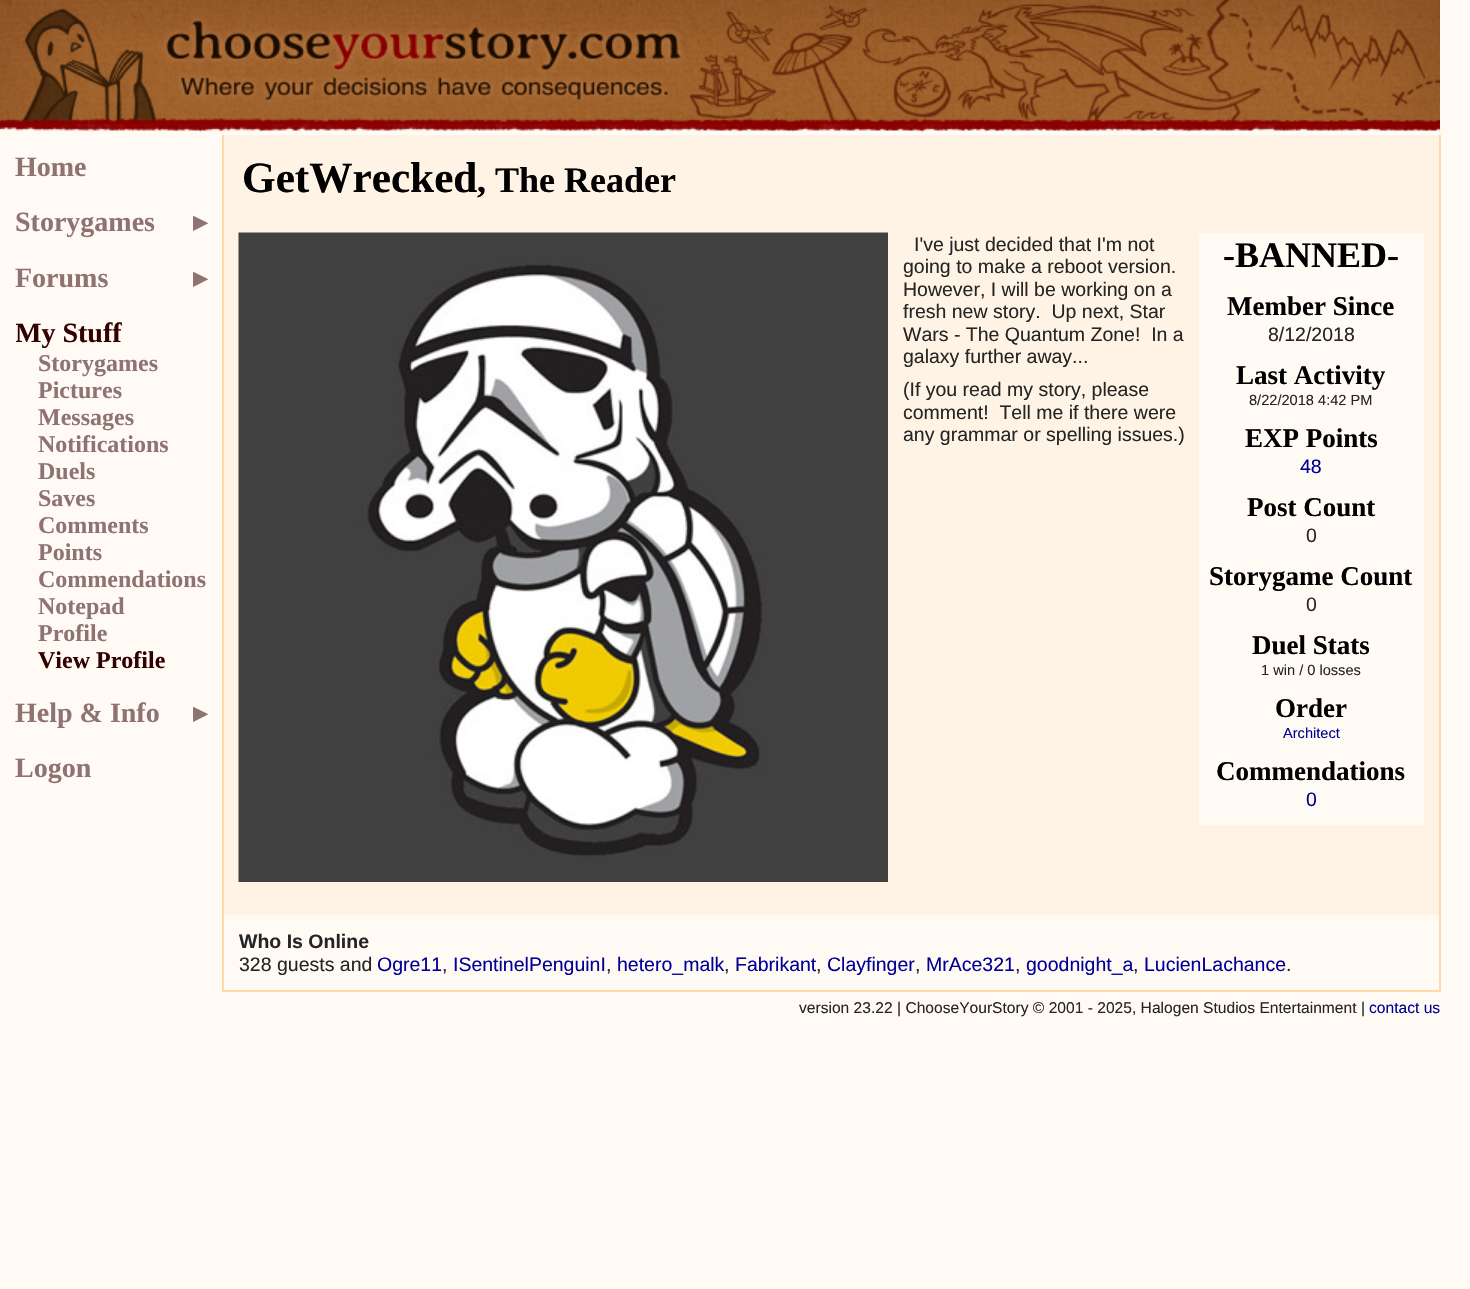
void draw(SkCanvas* canvas) {
  SkPaint paint;
  paint.setAntiAlias(true);
  auto face = [&](const char* family, int weight, float size, bool italic = false) {
    SkFontStyle style(weight, SkFontStyle::kNormal_Width,
      italic ? SkFontStyle::kItalic_Slant : SkFontStyle::kUpright_Slant);
    SkFont result(fontMgr->matchFamilyStyle(family, style), size);
    result.setSubpixel(true);
    return result;
  };
  auto paste = [&](const char* path, float x, float y, float w, float h) {
    auto image = SkImages::DeferredFromEncodedData(SkData::MakeFromFileName(path));
    canvas->drawImageRect(image, SkRect::MakeXYWH(x, y, w, h), SkSamplingOptions());
  };
  canvas->clear(0xfffffbf4);
  paste("img/1.png", 0, 0, 1440, 133);
  {
    const struct { float x, y, w, h; SkColor color; } items[] = {
      {224, 135, 1215, 780, 0xfffff3e5},
      {1439, 135, 2, 857, 0xffffd9aa},
      {222, 135, 2, 780, 0xffffd9aa},
    };
    for (auto [x, y, w, h, color] : items) {
      paint.setColor(color);
      canvas->drawRect(SkRect::MakeXYWH(x, y, w, h), paint);
    }
  }
  paste("img/2.png", 238, 232, 650, 650);
  {
    const struct { float x, y, w, h; SkColor color; } items[] = {
      {1199, 233, 225, 592, 0xfffffbf4},
      {222, 990, 1218, 2, 0xffffd9aa},
      {222, 915, 2, 77, 0xffffd9aa},
    };
    for (auto [x, y, w, h, color] : items) {
      paint.setColor(color);
      canvas->drawRect(SkRect::MakeXYWH(x, y, w, h), paint);
    }
  }
  auto f0 = face("Liberation Serif", 700, 28);
  paint.setColor(0xff8f7373);
  canvas->drawString("Home", 15, 176, f0, paint);
  canvas->drawString("Storygames", 15, 231, f0, paint);
  auto f1 = face("DejaVu Sans", 700, 28);
  canvas->drawString("▸", 193, 231, f1, paint);
  canvas->drawString("Forums", 15, 287, f0, paint);
  canvas->drawString("▸", 193, 287, f1, paint);
  paint.setColor(0xff330000);
  canvas->drawString("My Stuff", 15, 342, f0, paint);
  paint.setColor(0xfffffbf4);
  canvas->drawRect(SkRect::MakeXYWH(15, 317, 1, 25), paint);
  auto f2 = face("Liberation Serif", 700, 24);
  paint.setColor(0xff8f7373);
  {
    const struct { const char* s; float x, y; } items[] = {
      {"Storygames", 38, 371},
      {"Pictures", 38, 398},
      {"Messages", 38, 425},
      {"Notifications", 38, 452},
      {"Duels", 38, 479},
      {"Saves", 38, 506},
      {"Comments", 38, 533},
      {"Points", 38, 560},
      {"Commendations", 38, 587},
      {"Notepad", 38, 614},
      {"Profile", 38, 641},
    };
    for (auto [s, x, y] : items) {
      canvas->drawString(s, x, y, f2, paint);
    }
  }
  paint.setColor(0xff330000);
  canvas->drawString("View Profile", 38, 668, f2, paint);
  paint.setColor(0xff8f7373);
  canvas->drawString("Help & Info", 15, 722, f0, paint);
  canvas->drawString("▸", 193, 722, f1, paint);
  canvas->drawString("Logon", 15, 777, f0, paint);
  auto f3 = face("Liberation Serif", 700, 43.25f);
  paint.setColor(0xff000000);
  canvas->drawString("GetWrecked", 242, 192, f3, paint);
  auto f4 = face("Liberation Serif", 700, 36);
  canvas->drawString(", The Reader", 477, 192, f4, paint);
  auto f5 = face("Liberation Sans", 400, 19.5f);
  paint.setColor(0xff252525);
  {
    const struct { const char* s; float x, y; } items[] = {
      {"I've just decided that I'm not", 914, 251},
      {"going to make a reboot version.", 903, 273},
      {"However, I will be working on a", 903, 296},
      {"fresh new story.  Up next, Star", 903, 318},
      {"Wars - The Quantum Zone!  In a", 903, 341},
      {"galaxy further away...", 903, 363},
      {"(If you read my story, please", 903, 396},
      {"comment!  Tell me if there were", 903, 419},
      {"any grammar or spelling issues.)", 903, 441},
    };
    for (auto [s, x, y] : items) {
      canvas->drawString(s, x, y, f5, paint);
    }
  }
  paint.setColor(0xff000000);
  canvas->drawString("-BANNED-", 1223, 267, f4, paint);
  auto f6 = face("Liberation Serif", 700, 27);
  canvas->drawString("Member Since", 1227, 315, f6, paint);
  paint.setColor(0xff252525);
  canvas->drawString("8/12/2018", 1268, 341, f5, paint);
  paint.setColor(0xff000000);
  canvas->drawString("Last Activity", 1236, 384, f6, paint);
  auto f7 = face("Liberation Sans", 400, 14.6f);
  paint.setColor(0xff252525);
  canvas->drawString("8/22/2018 4:42 PM", 1249, 405, f7, paint);
  paint.setColor(0xff000000);
  canvas->drawString("EXP Points", 1245, 447, f6, paint);
  paint.setColor(0xff000099);
  canvas->drawString("48", 1300, 473, f5, paint);
  paint.setColor(0xff000000);
  canvas->drawString("Post Count", 1247, 516, f6, paint);
  paint.setColor(0xff252525);
  canvas->drawString("0", 1306, 542, f5, paint);
  paint.setColor(0xff000000);
  canvas->drawString("Storygame Count", 1209, 585, f6, paint);
  paint.setColor(0xff252525);
  canvas->drawString("0", 1306, 611, f5, paint);
  paint.setColor(0xff000000);
  canvas->drawString("Duel Stats", 1252, 654, f6, paint);
  paint.setColor(0xff252525);
  canvas->drawString("1 win / 0 losses", 1261, 675, f7, paint);
  paint.setColor(0xff000000);
  canvas->drawString("Order", 1275, 717, f6, paint);
  paint.setColor(0xff000099);
  canvas->drawString("Architect", 1283, 738, f7, paint);
  paint.setColor(0xff000000);
  canvas->drawString("Commendations", 1216, 780, f6, paint);
  paint.setColor(0xff000099);
  canvas->drawString("0", 1306, 806, f5, paint);
  auto f8 = face("Liberation Sans", 700, 19.5f);
  paint.setColor(0xff252525);
  canvas->drawString("Who Is Online", 239, 948, f8, paint);
  canvas->drawString("328 guests and", 239, 971, f5, paint);
  paint.setColor(0xff000099);
  canvas->drawString("Ogre11", 377, 971, f5, paint);
  paint.setColor(0xff252525);
  canvas->drawString(",", 442, 971, f5, paint);
  paint.setColor(0xff000099);
  canvas->drawString("ISentinelPenguinI", 453, 971, f5, paint);
  paint.setColor(0xff252525);
  canvas->drawString(",", 606, 971, f5, paint);
  paint.setColor(0xff000099);
  canvas->drawString("hetero_malk", 617, 971, f5, paint);
  paint.setColor(0xff252525);
  canvas->drawString(",", 724, 971, f5, paint);
  paint.setColor(0xff000099);
  canvas->drawString("Fabrikant", 735, 971, f5, paint);
  paint.setColor(0xff252525);
  canvas->drawString(",", 816, 971, f5, paint);
  paint.setColor(0xff000099);
  canvas->drawString("Clayfinger", 827, 971, f5, paint);
  paint.setColor(0xff252525);
  canvas->drawString(",", 915, 971, f5, paint);
  paint.setColor(0xff000099);
  canvas->drawString("MrAce321", 926, 971, f5, paint);
  paint.setColor(0xff252525);
  canvas->drawString(",", 1015, 971, f5, paint);
  paint.setColor(0xff000099);
  canvas->drawString("goodnight_a", 1026, 971, f5, paint);
  paint.setColor(0xff252525);
  canvas->drawString(",", 1133, 971, f5, paint);
  paint.setColor(0xff000099);
  canvas->drawString("LucienLachance", 1144, 971, f5, paint);
  paint.setColor(0xff252525);
  canvas->drawString(".", 1286, 971, f5, paint);
  auto f9 = face("Liberation Sans", 400, 15.6f);
  canvas->drawString("version 23.22 | ChooseYourStory © 2001 - 2025, Halogen Studios Entertainment |", 799, 1013, f9, paint);
  paint.setColor(0xff000099);
  canvas->drawString("contact us", 1369, 1013, f9, paint);
}
